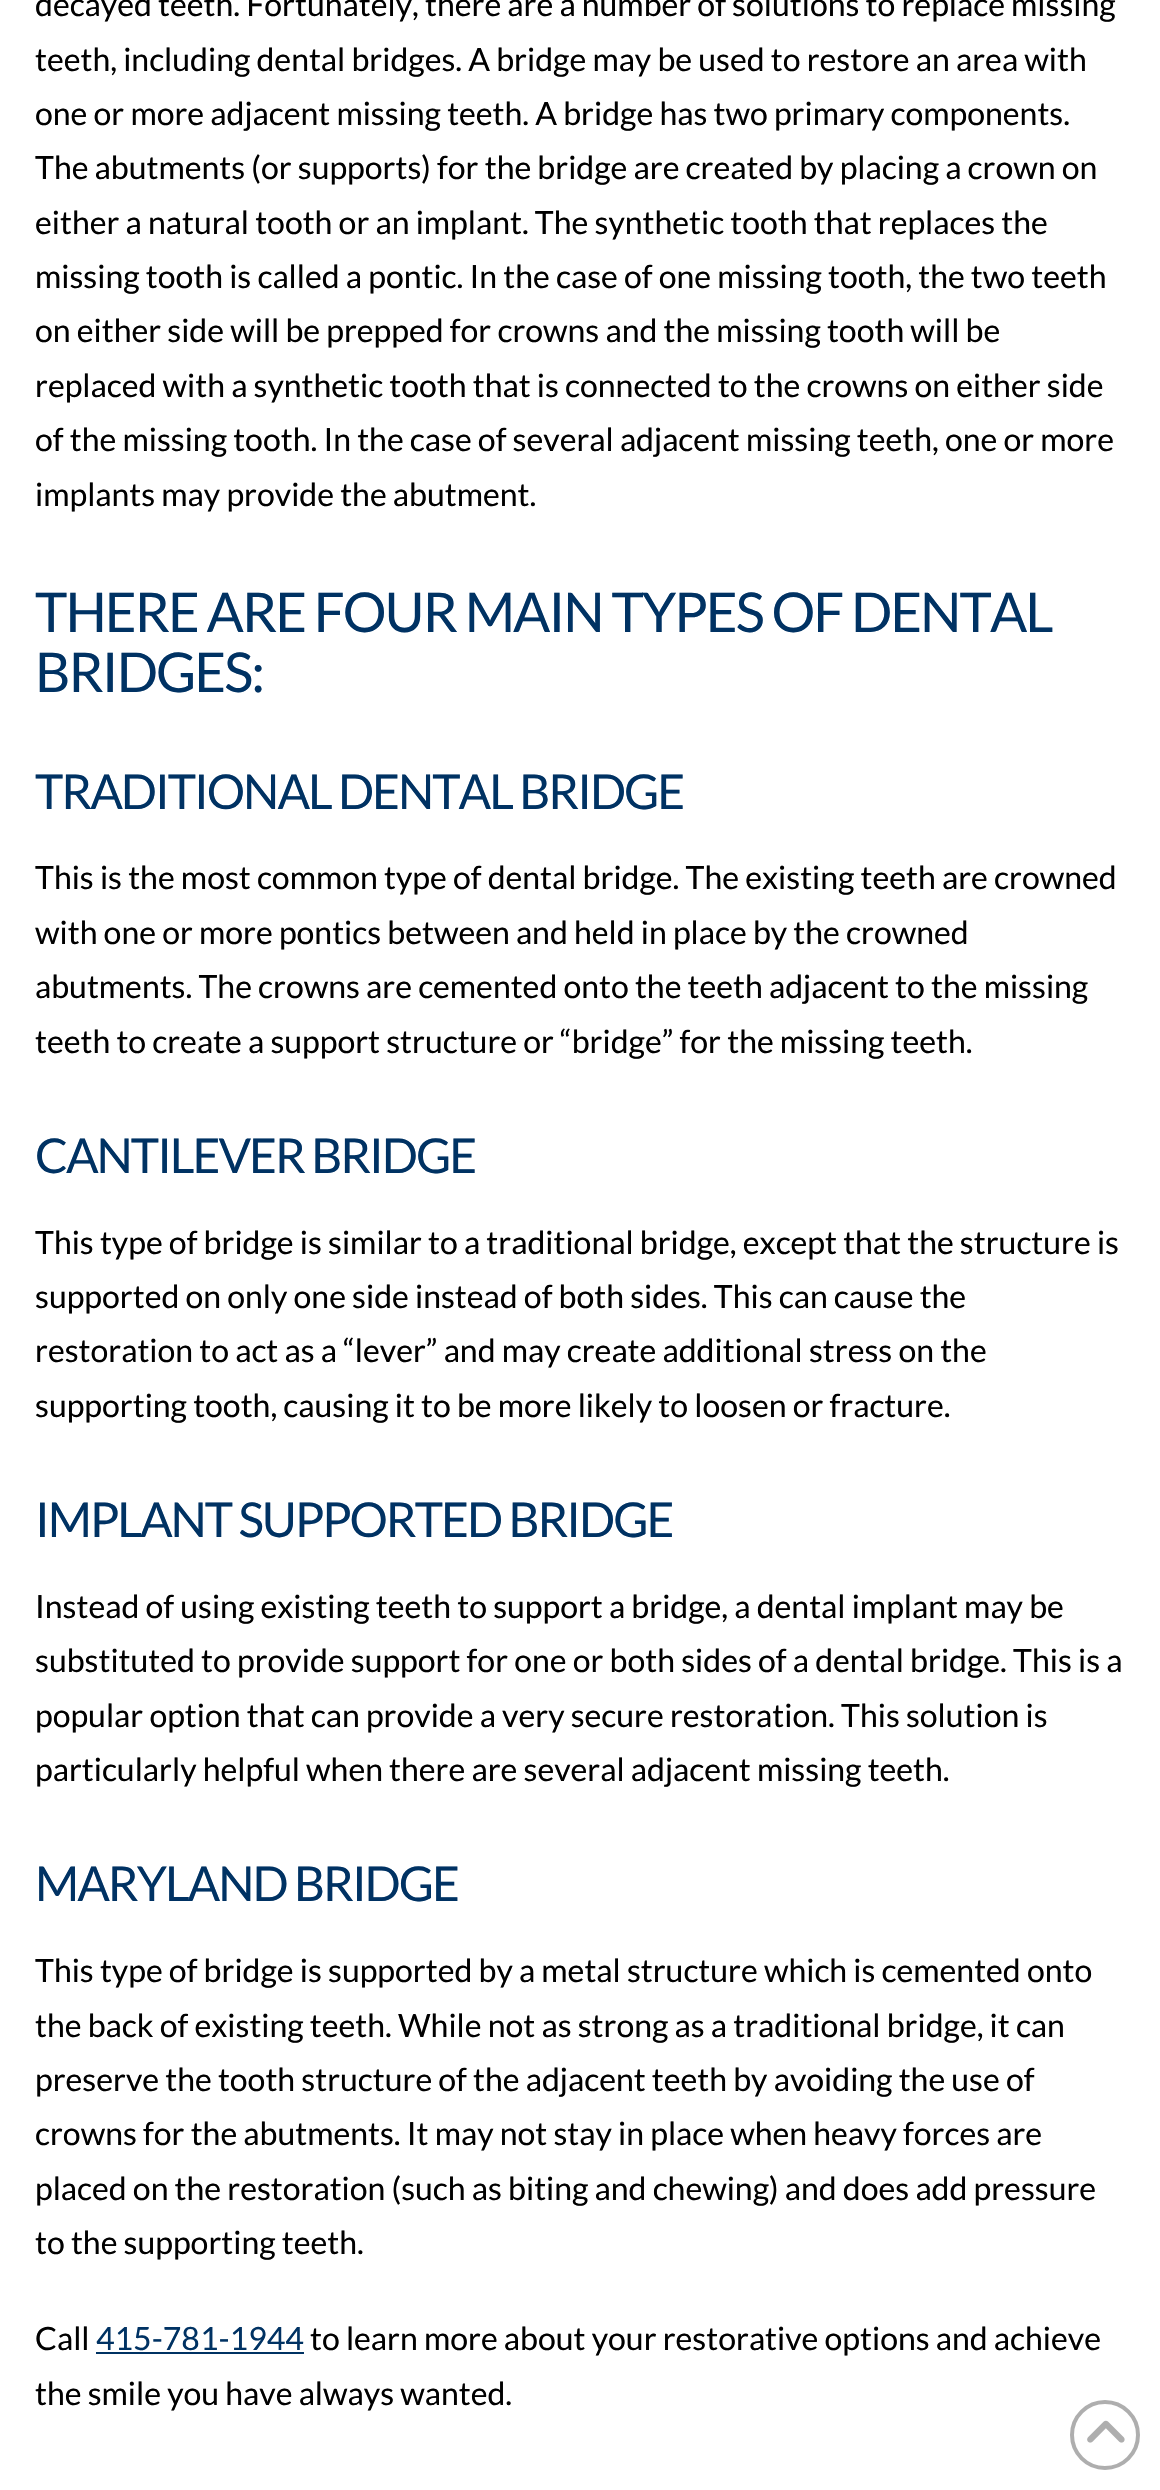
void draw(SkCanvas* canvas) {
  SkPaint paint;
  paint.setAntiAlias(true);
  auto face = [&](const char* family, int weight, float size, bool italic = false) {
    SkFontStyle style(weight, SkFontStyle::kNormal_Width,
      italic ? SkFontStyle::kItalic_Slant : SkFontStyle::kUpright_Slant);
    SkFont result(fontMgr->matchFamilyStyle(family, style), size);
    result.setSubpixel(true);
    return result;
  };
  auto writeSpaced = [&](const char* s, float x, float y, const SkFont& font, const SkPaint& ink, float letter, float word) {
    std::vector<SkGlyphID> glyphs(font.countText(s, strlen(s), SkTextEncoding::kUTF8));
    std::vector<float> xs(glyphs.size());
    font.textToGlyphs(s, strlen(s), SkTextEncoding::kUTF8, glyphs);
    font.getXPos(glyphs, xs, x);
    float extra = 0;
    for (size_t i = 0; i < glyphs.size(); i++) {
      xs[i] += extra;
      extra += letter + word * (glyphs[i] == font.unicharToGlyph(' '));
    }
    canvas->drawTextBlob(SkTextBlob::MakeFromPosHGlyphs(glyphs, xs, y, font), 0, 0, ink);
  };
  auto paste = [&](const char* path, float x, float y, float w, float h) {
    auto image = SkImages::DeferredFromEncodedData(SkData::MakeFromFileName(path));
    canvas->drawImageRect(image, SkRect::MakeXYWH(x, y, w, h), SkSamplingOptions());
  };
  canvas->clear(0xffffffff);
  paint.setColor(0xff003263);
  canvas->drawRect(SkRect::MakeXYWH(96, 2352, 208, 2), paint);
  paint.setStroke(true);
  paint.setStrokeWidth(4);
  paint.setColor(0xffaeaeae);
  canvas->drawCircle(1105, 2435, 33, paint);
  paste("img/1.png", 1087, 2420, 38, 23);
  auto f0 = face("Lato", 400, 32);
  paint.setStroke(false);
  paint.setColor(0xff000000);
  {
    const struct { const char* s; float x, y; } items[] = {
      {"decayed teeth. Fortunately, there are a number of solutions to replace missing", 35, 16},
      {"teeth, including dental bridges. A bridge may be used to restore an area with", 35, 71},
      {"one or more adjacent missing teeth. A bridge has two primary components.", 35, 125},
      {"The abutments (or supports) for the bridge are created by placing a crown on", 35, 179},
      {"either a natural tooth or an implant. The synthetic tooth that replaces the", 35, 234},
      {"missing tooth is called a pontic. In the case of one missing tooth, the two teeth", 35, 288},
      {"on either side will be prepped for crowns and the missing tooth will be", 35, 342},
      {"replaced with a synthetic tooth that is connected to the crowns on either side", 35, 397},
      {"of the missing tooth. In the case of several adjacent missing teeth, one or more", 35, 451},
      {"implants may provide the abutment.", 35, 506},
    };
    for (auto [s, x, y] : items) {
      canvas->drawString(s, x, y, f0, paint);
    }
  }
  auto f1 = face("Lato", 400, 54.8f);
  paint.setColor(0xff003263);
  writeSpaced("THERE ARE FOUR MAIN TYPES OF DENTAL", 35, 632, f1, paint, -1.95f, 0);
  writeSpaced("BRIDGES:", 35, 692, f1, paint, -1.95f, 0);
  auto f2 = face("Lato", 400, 48);
  writeSpaced("TRADITIONAL DENTAL BRIDGE", 35, 809, f2, paint, -2, 0);
  paint.setColor(0xff000000);
  {
    const struct { const char* s; float x, y; } items[] = {
      {"This is the most common type of dental bridge. The existing teeth are crowned", 35, 889},
      {"with one or more pontics between and held in place by the crowned", 35, 944},
      {"abutments. The crowns are cemented onto the teeth adjacent to the missing", 35, 998},
      {"teeth to create a support structure or “bridge” for the missing teeth.", 35, 1053},
    };
    for (auto [s, x, y] : items) {
      canvas->drawString(s, x, y, f0, paint);
    }
  }
  paint.setColor(0xff003263);
  writeSpaced("CANTILEVER BRIDGE", 35, 1173, f2, paint, -2, 0);
  paint.setColor(0xff000000);
  {
    const struct { const char* s; float x, y; } items[] = {
      {"This type of bridge is similar to a traditional bridge, except that the structure is", 35, 1254},
      {"supported on only one side instead of both sides. This can cause the", 35, 1308},
      {"restoration to act as a “lever” and may create additional stress on the", 35, 1362},
      {"supporting tooth, causing it to be more likely to loosen or fracture.", 35, 1417},
    };
    for (auto [s, x, y] : items) {
      canvas->drawString(s, x, y, f0, paint);
    }
  }
  paint.setColor(0xff003263);
  writeSpaced("IMPLANT SUPPORTED BRIDGE", 35, 1537, f2, paint, -2, 0);
  paint.setColor(0xff000000);
  {
    const struct { const char* s; float x, y; } items[] = {
      {"Instead of using existing teeth to support a bridge, a dental implant may be", 35, 1618},
      {"substituted to provide support for one or both sides of a dental bridge. This is a", 35, 1672},
      {"popular option that can provide a very secure restoration. This solution is", 35, 1727},
      {"particularly helpful when there are several adjacent missing teeth.", 35, 1781},
    };
    for (auto [s, x, y] : items) {
      canvas->drawString(s, x, y, f0, paint);
    }
  }
  paint.setColor(0xff003263);
  writeSpaced("MARYLAND BRIDGE", 35, 1901, f2, paint, -2, 0);
  paint.setColor(0xff000000);
  {
    const struct { const char* s; float x, y; } items[] = {
      {"This type of bridge is supported by a metal structure which is cemented onto", 35, 1982},
      {"the back of existing teeth. While not as strong as a traditional bridge, it can", 35, 2037},
      {"preserve the tooth structure of the adjacent teeth by avoiding the use of", 35, 2091},
      {"crowns for the abutments. It may not stay in place when heavy forces are", 35, 2145},
      {"placed on the restoration (such as biting and chewing) and does add pressure", 35, 2200},
      {"to the supporting teeth.", 35, 2254},
      {"Call", 35, 2350},
    };
    for (auto [s, x, y] : items) {
      canvas->drawString(s, x, y, f0, paint);
    }
  }
  paint.setColor(0xff003263);
  canvas->drawString("415-781-1944", 96, 2350, f0, paint);
  paint.setColor(0xff000000);
  canvas->drawString("to learn more about your restorative options and achieve", 310, 2350, f0, paint);
  canvas->drawString("the smile you have always wanted.", 35, 2405, f0, paint);
}
